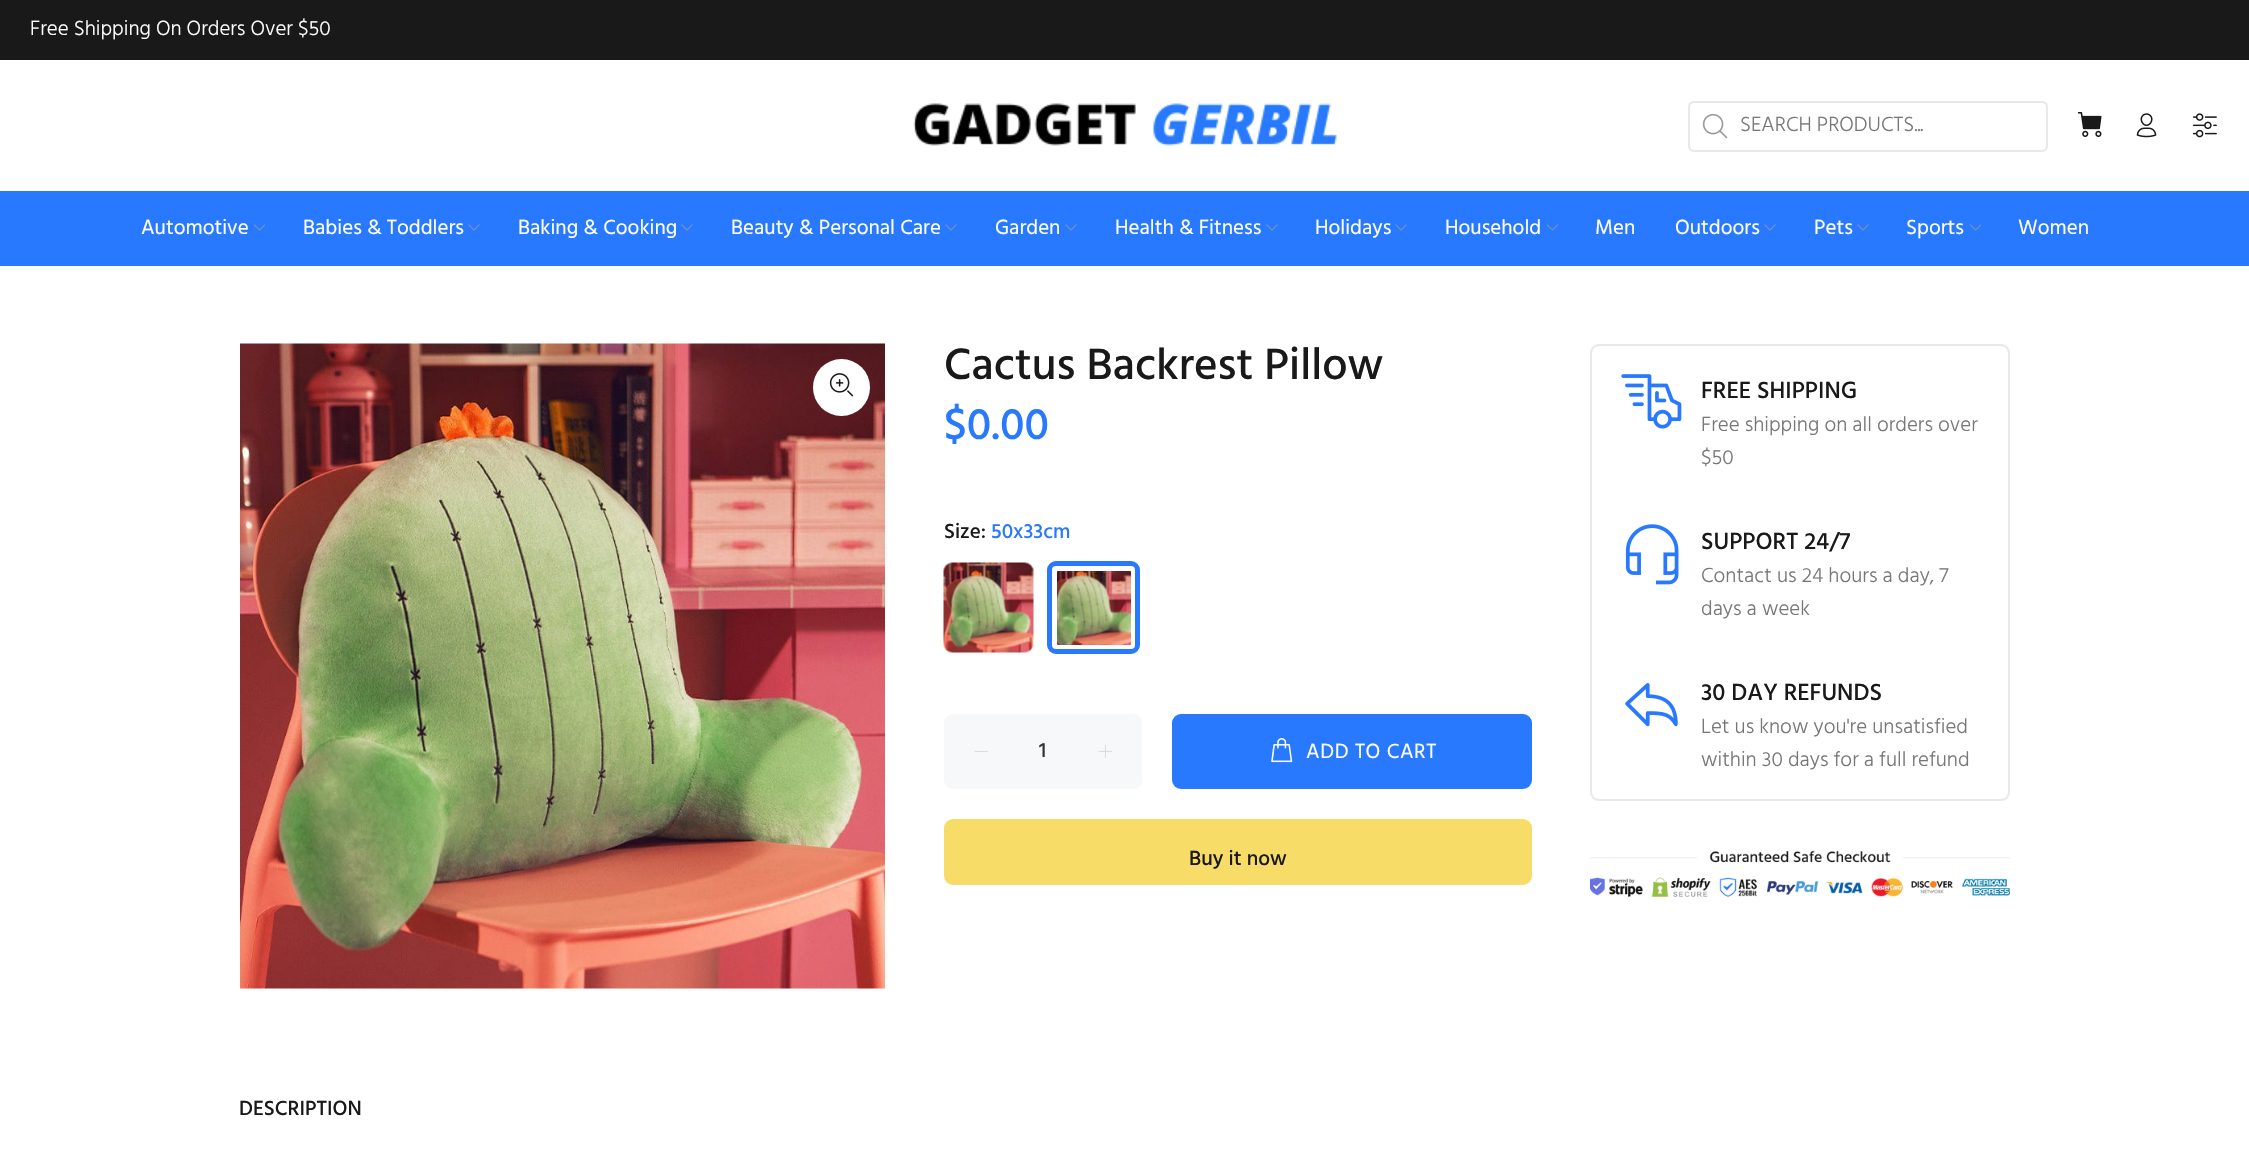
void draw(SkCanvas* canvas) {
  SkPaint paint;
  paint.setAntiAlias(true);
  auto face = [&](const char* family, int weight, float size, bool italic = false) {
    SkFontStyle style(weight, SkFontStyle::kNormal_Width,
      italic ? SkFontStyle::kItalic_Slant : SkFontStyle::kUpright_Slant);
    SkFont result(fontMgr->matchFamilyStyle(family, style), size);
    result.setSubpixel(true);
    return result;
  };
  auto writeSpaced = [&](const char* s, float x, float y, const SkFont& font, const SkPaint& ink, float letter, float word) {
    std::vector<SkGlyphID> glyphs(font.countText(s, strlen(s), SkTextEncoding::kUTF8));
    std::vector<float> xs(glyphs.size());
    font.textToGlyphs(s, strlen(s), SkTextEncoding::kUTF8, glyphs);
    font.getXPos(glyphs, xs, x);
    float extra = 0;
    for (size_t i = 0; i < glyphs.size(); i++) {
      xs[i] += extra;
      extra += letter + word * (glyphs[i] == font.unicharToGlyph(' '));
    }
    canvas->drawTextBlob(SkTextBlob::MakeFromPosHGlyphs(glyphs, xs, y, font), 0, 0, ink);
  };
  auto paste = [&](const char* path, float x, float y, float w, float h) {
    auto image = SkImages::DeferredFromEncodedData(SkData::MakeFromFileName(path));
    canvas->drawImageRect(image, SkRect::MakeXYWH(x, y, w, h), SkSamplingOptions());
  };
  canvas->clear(0xffffffff);
  paint.setColor(0xff191919);
  canvas->drawRect(SkRect::MakeXYWH(0, 0, 2249, 60), paint);
  paste("img/1.png", 913, 103, 424, 43);
  paint.setStroke(true);
  paint.setStrokeWidth(2);
  paint.setColor(0xffe9e7e7);
  canvas->drawRoundRect(SkRect::MakeXYWH(1689, 102, 358, 49), 5, 5, paint);
  paste("img/2.png", 1702, 113, 26, 26);
  paste("img/3.png", 2078, 112, 24, 25);
  paste("img/4.png", 2136, 113, 21, 25);
  paste("img/5.png", 2192, 113, 25, 25);
  paint.setStroke(false);
  paint.setColor(0xff2879fe);
  canvas->drawRect(SkRect::MakeXYWH(0, 191, 2249, 75), paint);
  paste("img/6.png", 253, 224, 13, 7);
  paste("img/7.png", 468, 224, 12, 7);
  paste("img/7.png", 681, 224, 12, 7);
  paste("img/7.png", 945, 224, 12, 7);
  paste("img/7.png", 1065, 224, 12, 7);
  paste("img/7.png", 1266, 224, 12, 7);
  paste("img/7.png", 1395, 224, 12, 7);
  paste("img/6.png", 1546, 224, 13, 7);
  paste("img/7.png", 1764, 224, 12, 7);
  paste("img/7.png", 1857, 224, 12, 7);
  paste("img/6.png", 1969, 224, 13, 7);
  paste("img/8.png", 240, 343, 645, 646);
  paint.setColor(0xffffffff);
  canvas->drawCircle(841.5f, 387.5f, 28.5f, paint);
  paste("img/9.png", 829, 373, 25, 24);
  paste("img/10.png", 943, 562, 91, 91);
  paste("img/11.png", 1057, 571, 74, 74);
  paint.setStroke(true);
  paint.setStrokeWidth(8);
  canvas->drawRoundRect(SkRect::MakeXYWH(1053, 567, 82, 82), 5, 5, paint);
  paint.setStrokeWidth(5);
  paint.setColor(0xff2879fe);
  canvas->drawRoundRect(SkRect::MakeXYWH(1049.5f, 563.5f, 88, 88), 6.5f, 6.5f, paint);
  paint.setStroke(false);
  paint.setColor(0xfff7f8fa);
  canvas->drawRoundRect(SkRect::MakeXYWH(944, 714, 198, 75), 9, 9, paint);
  paste("img/12.png", 974, 751, 14, 1);
  paste("img/13.png", 1098, 744, 15, 14);
  paint.setColor(0xff2879fe);
  canvas->drawRoundRect(SkRect::MakeXYWH(1172, 714, 360, 75), 9, 9, paint);
  paste("img/14.png", 1271, 738, 22, 25);
  paint.setColor(0xfff8dc68);
  canvas->drawRoundRect(SkRect::MakeXYWH(944, 819, 588, 66), 9, 9, paint);
  paint.setStroke(true);
  paint.setStrokeWidth(2);
  paint.setColor(0xffe9e7e7);
  canvas->drawRoundRect(SkRect::MakeXYWH(1591, 345, 418, 455), 8, 8, paint);
  paste("img/15.png", 1621, 374, 61, 55);
  paste("img/16.png", 1625, 524, 54, 61);
  paste("img/17.png", 1625, 683, 53, 44);
  paste("img/18.png", 1590, 850, 420, 47);
  auto f0 = face("Hind", 300, 21);
  paint.setStroke(false);
  paint.setColor(0xffffffff);
  canvas->drawString("Free Shipping On Orders Over $50", 30, 35, f0, paint);
  paint.setColor(0xff777777);
  canvas->drawString("SEARCH PRODUCTS...", 1740, 131, f0, paint);
  auto f1 = face("Hind", 400, 21);
  paint.setColor(0xffffffff);
  {
    const struct { const char* s; float x, y; } items[] = {
      {"Automotive", 141, 234},
      {"Babies & Toddlers", 303, 234},
      {"Baking & Cooking", 518, 234},
      {"Beauty & Personal Care", 731, 234},
      {"Garden", 995, 234},
      {"Health & Fitness", 1115, 234},
      {"Holidays", 1315, 234},
      {"Household", 1445, 234},
      {"Men", 1595, 234},
      {"Outdoors", 1675, 234},
      {"Pets", 1814, 234},
      {"Sports", 1906, 234},
      {"Women", 2018, 234},
    };
    for (auto [s, x, y] : items) {
      canvas->drawString(s, x, y, f1, paint);
    }
  }
  auto f2 = face("Hind", 500, 45);
  paint.setColor(0xff191919);
  canvas->drawString("Cactus Backrest Pillow", 944, 379, f2, paint);
  paint.setColor(0xff2879fe);
  canvas->drawString("$0.00", 944, 439, f2, paint);
  auto f3 = face("Hind", 500, 21);
  paint.setColor(0xff191919);
  canvas->drawString("Size:", 944, 538, f3, paint);
  paint.setColor(0xff2879fe);
  canvas->drawString("50x33cm", 991, 538, f3, paint);
  paint.setColor(0xff333333);
  canvas->drawString("1", 1039, 757, f3, paint);
  paint.setColor(0xffffffff);
  writeSpaced("ADD TO CART", 1306, 758, f1, paint, 0.6f, 0);
  paint.setColor(0xff191919);
  canvas->drawString("Buy it now", 1189, 865, f3, paint);
  auto f4 = face("Hind", 500, 24);
  canvas->drawString("FREE SHIPPING", 1701, 398, f4, paint);
  paint.setColor(0xff777777);
  canvas->drawString("Free shipping on all orders over", 1701, 431, f0, paint);
  canvas->drawString("$50", 1701, 464, f0, paint);
  paint.setColor(0xff191919);
  canvas->drawString("SUPPORT 24/7", 1701, 549, f4, paint);
  paint.setColor(0xff777777);
  canvas->drawString("Contact us 24 hours a day, 7", 1701, 582, f0, paint);
  canvas->drawString("days a week", 1701, 615, f0, paint);
  paint.setColor(0xff191919);
  canvas->drawString("30 DAY REFUNDS", 1701, 700, f4, paint);
  paint.setColor(0xff777777);
  canvas->drawString("Let us know you're unsatisfied", 1701, 733, f0, paint);
  canvas->drawString("within 30 days for a full refund", 1701, 766, f0, paint);
  paint.setColor(0xff191919);
  canvas->drawString("DESCRIPTION", 239, 1115, f3, paint);
}
